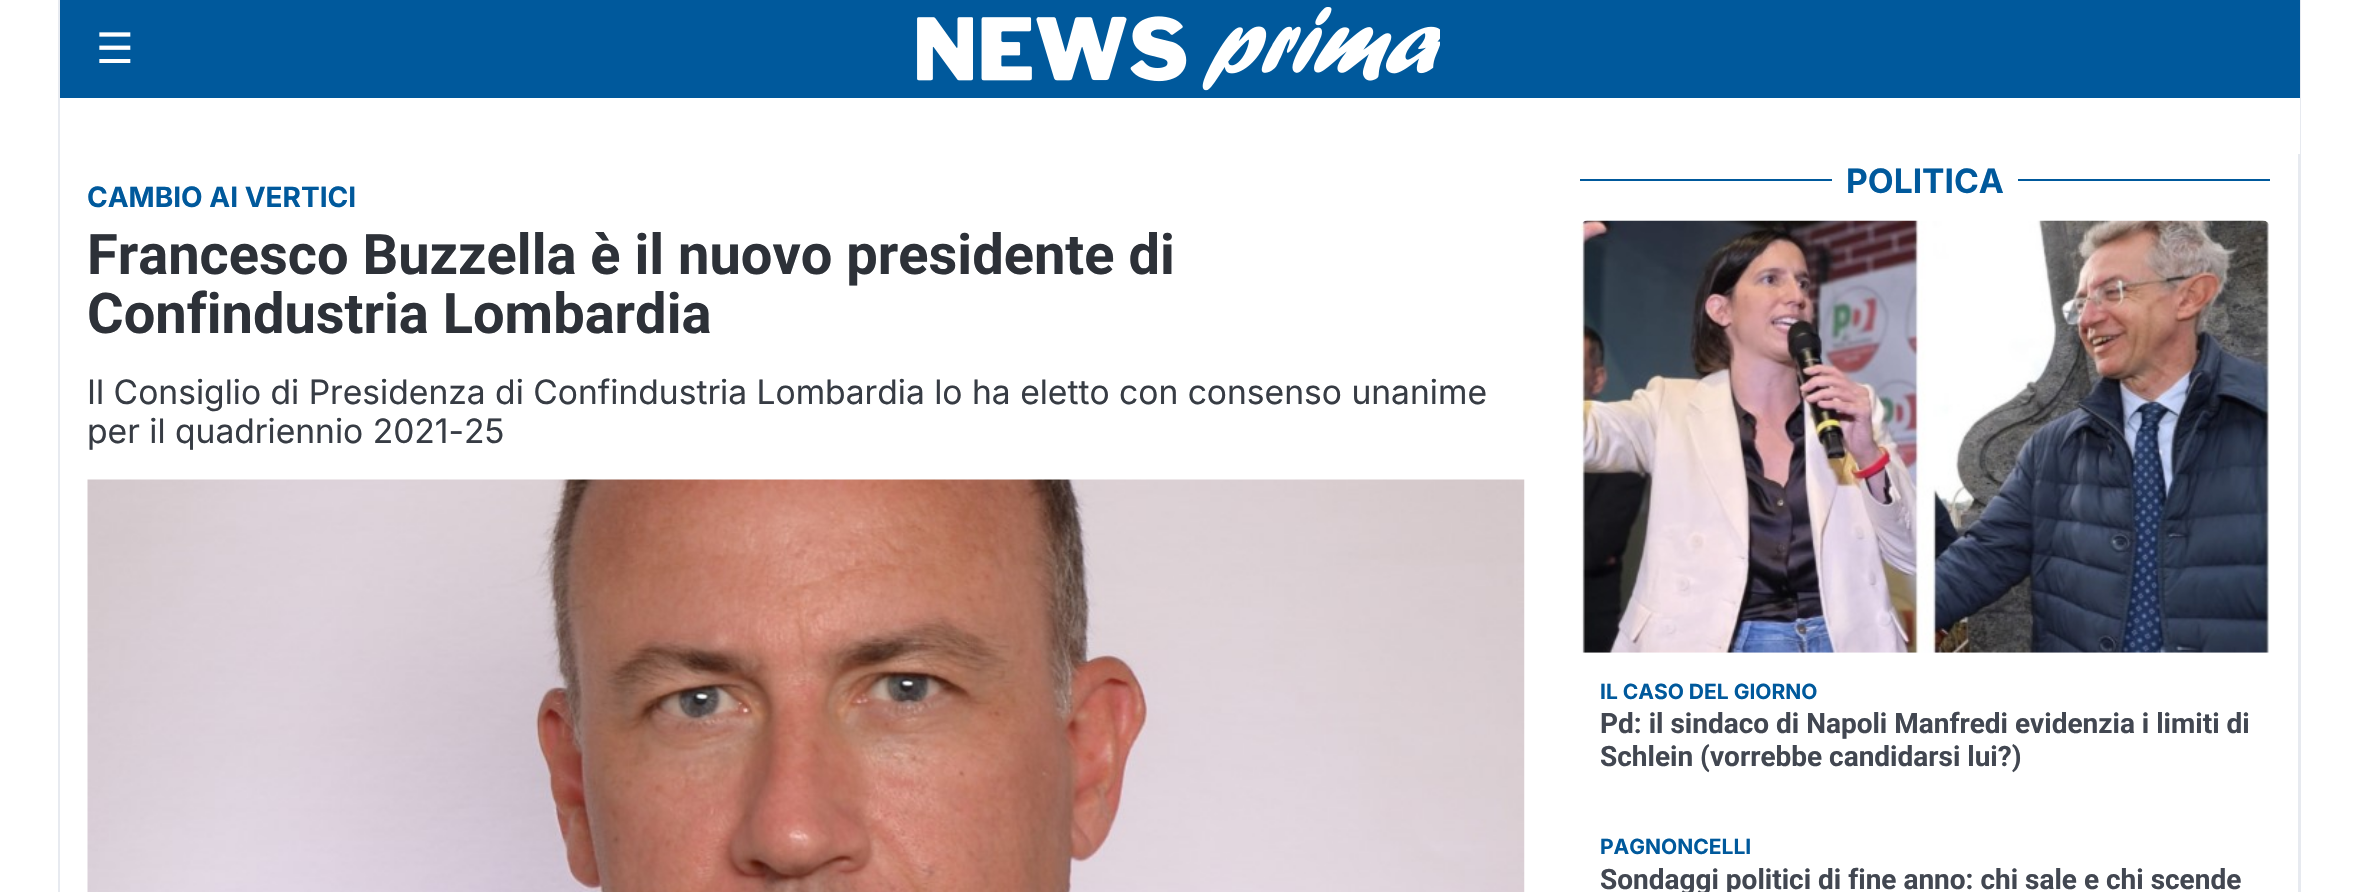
void draw(SkCanvas* canvas) {
  SkPaint paint;
  paint.setAntiAlias(true);
  auto face = [&](const char* family, int weight, float size, bool italic = false) {
    SkFontStyle style(weight, SkFontStyle::kNormal_Width,
      italic ? SkFontStyle::kItalic_Slant : SkFontStyle::kUpright_Slant);
    SkFont result(fontMgr->matchFamilyStyle(family, style), size);
    result.setSubpixel(true);
    return result;
  };
  auto paste = [&](const char* path, float x, float y, float w, float h) {
    auto image = SkImages::DeferredFromEncodedData(SkData::MakeFromFileName(path));
    canvas->drawImageRect(image, SkRect::MakeXYWH(x, y, w, h), SkSamplingOptions());
  };
  canvas->clear(0xffffffff);
  {
    const struct { float x, y, w, h; SkColor color; } items[] = {
      {2300, 0, 1, 892, 0xffe7eaf0},
      {58, 0, 2, 892, 0xffe7eaf0},
      {60, 0, 2240, 98, 0xff00599c},
    };
    for (auto [x, y, w, h, color] : items) {
      paint.setColor(color);
      canvas->drawRect(SkRect::MakeXYWH(x, y, w, h), paint);
    }
  }
  paste("img/1.png", 917, 7, 523, 84);
  paste("img/2.png", 87, 479, 1438, 413);
  {
    const struct { float x, y, w, h; SkColor color; } items[] = {
      {2298, 154, 2, 738, 0xffe7eaf0},
      {1580, 179, 690, 2, 0xff00599c},
      {1832, 179, 186, 2, 0xffffffff},
    };
    for (auto [x, y, w, h, color] : items) {
      paint.setColor(color);
      canvas->drawRect(SkRect::MakeXYWH(x, y, w, h), paint);
    }
  }
  paste("img/3.png", 1580, 220, 690, 433);
  auto f0 = face("DejaVu Sans", 400, 42);
  canvas->drawString("☰", 96, 63, f0, paint);
  auto f1 = face("Inter", 700, 28);
  paint.setColor(0xff00599c);
  canvas->drawString("CAMBIO AI VERTICI", 87, 207, f1, paint);
  auto f2 = face("Roboto", 700, 56);
  paint.setColor(0xff2d3138);
  canvas->drawString("Francesco Buzzella è il nuovo presidente di", 87, 274, f2, paint);
  canvas->drawString("Confindustria Lombardia", 87, 333, f2, paint);
  auto f3 = face("Inter", 400, 33.6f);
  paint.setColor(0xff373c44);
  canvas->drawString("Il Consiglio di Presidenza di Confindustria Lombardia lo ha eletto con consenso unanime", 87, 404, f3, paint);
  canvas->drawString("per il quadriennio 2021-25", 87, 443, f3, paint);
  auto f4 = face("Inter", 700, 33.6f);
  paint.setColor(0xff00599c);
  canvas->drawString("POLITICA", 1846, 193, f4, paint);
  auto f5 = face("Inter", 700, 21);
  canvas->drawString("IL CASO DEL GIORNO", 1600, 699, f5, paint);
  auto f6 = face("Roboto", 700, 28);
  paint.setColor(0xff424751);
  canvas->drawString("Pd: il sindaco di Napoli Manfredi evidenzia i limiti di", 1600, 733, f6, paint);
  canvas->drawString("Schlein (vorrebbe candidarsi lui?)", 1600, 766, f6, paint);
  paint.setColor(0xff00599c);
  canvas->drawString("PAGNONCELLI", 1600, 854, f5, paint);
  paint.setColor(0xff424751);
  canvas->drawString("Sondaggi politici di fine anno: chi sale e chi scende", 1600, 889, f6, paint);
}
